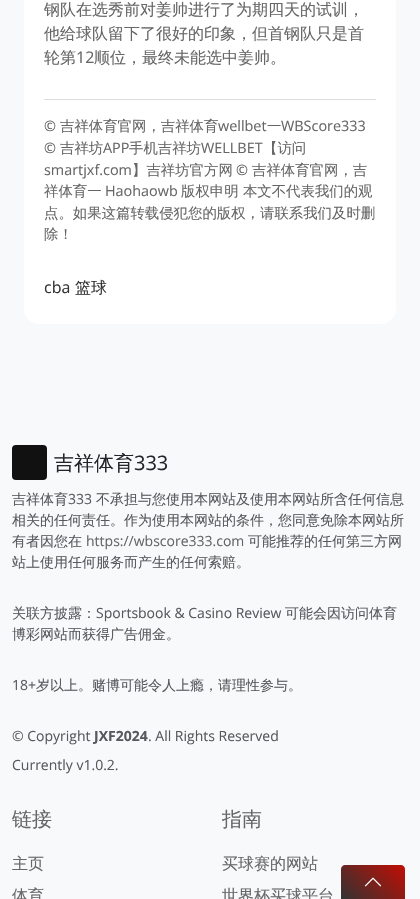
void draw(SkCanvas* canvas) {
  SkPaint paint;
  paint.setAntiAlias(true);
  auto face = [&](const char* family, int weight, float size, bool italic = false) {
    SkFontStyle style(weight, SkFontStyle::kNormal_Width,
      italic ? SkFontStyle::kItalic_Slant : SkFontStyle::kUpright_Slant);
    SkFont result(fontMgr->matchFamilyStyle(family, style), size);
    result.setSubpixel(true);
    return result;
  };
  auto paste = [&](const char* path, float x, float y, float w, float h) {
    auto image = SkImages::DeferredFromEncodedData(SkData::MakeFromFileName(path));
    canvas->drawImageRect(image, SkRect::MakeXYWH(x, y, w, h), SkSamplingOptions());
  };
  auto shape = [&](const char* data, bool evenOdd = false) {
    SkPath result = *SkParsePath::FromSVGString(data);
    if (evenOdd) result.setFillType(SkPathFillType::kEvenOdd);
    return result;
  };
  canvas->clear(0xfff8f9fa);
  paint.setColor(0xffffffff);
  canvas->drawRoundRect(SkRect::MakeXYWH(24, -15, 372, 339), 15, 15, paint);
  paint.setColor(0xffdddddd);
  canvas->drawRect(SkRect::MakeXYWH(44, 99, 332, 1), paint);
  paint.setColor(0xff111111);
  canvas->drawRoundRect(SkRect::MakeXYWH(12, 445, 35, 35), 4, 4, paint);
  {
    const SkColor colors[] = {0xff333333, 0xffc10e04};
    const float stops[] = {0, 1};
    const SkPoint ends[] = {{349, 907}, {398, 858}};
    paint.setShader(SkGradientShader::MakeLinear(ends, colors, stops, 2, SkTileMode::kClamp));
    paint.setAlpha(255);
  }
  canvas->drawPath(shape("M345 865H401C403 865 405 867 405 869V899H341V869C341 867 343 865 345 865Z"), paint);
  paste("img/1.png", 364, 877, 18, 10);
  auto f0 = face("WenQuanYi Zen Hei", 500, 16);
  paint.setShader(nullptr);
  paint.setColor(0xff666666);
  {
    const struct { const char* s; float x, y; } items[] = {
      {"钢队在选秀前对姜帅进行了为期四天的试训，", 44, 15},
      {"他给球队留下了很好的印象，但首钢队只是首", 44, 39},
      {"轮第", 44, 63},
    };
    for (auto [s, x, y] : items) {
      canvas->drawString(s, x, y, f0, paint);
    }
  }
  auto f1 = face("Open Sans", 400, 16);
  canvas->drawString("12", 76, 63, f1, paint);
  canvas->drawString("顺位，最终未能选中姜帅。", 94, 63, f0, paint);
  auto f2 = face("Open Sans", 400, 14.4f);
  canvas->drawString("©", 44, 131, f2, paint);
  auto f3 = face("WenQuanYi Zen Hei", 500, 14.4f);
  canvas->drawString("吉祥体育官网，吉祥体育", 60, 131, f3, paint);
  canvas->drawString("wellbet", 218, 131, f2, paint);
  canvas->drawString("一", 267, 131, f3, paint);
  canvas->drawString("WBScore333", 281, 131, f2, paint);
  canvas->drawString("©", 44, 153, f2, paint);
  canvas->drawString("吉祥坊", 60, 153, f3, paint);
  canvas->drawString("APP", 103, 153, f2, paint);
  canvas->drawString("手机吉祥坊", 129, 153, f3, paint);
  canvas->drawString("WELLBET", 201, 153, f2, paint);
  canvas->drawString("【访问", 263, 153, f3, paint);
  canvas->drawString("smartjxf.com", 44, 175, f2, paint);
  canvas->drawString("】吉祥坊官方网", 132, 175, f3, paint);
  canvas->drawString("©", 236, 175, f2, paint);
  canvas->drawString("吉祥体育官网，吉", 252, 175, f3, paint);
  canvas->drawString("祥体育一", 44, 196, f3, paint);
  canvas->drawString("Haohaowb", 105, 196, f2, paint);
  {
    const struct { const char* s; float x, y; } items[] = {
      {"版权申明 本文不代表我们的观", 181, 196},
      {"点。如果这篇转载侵犯您的版权，请联系我们及时删", 44, 218},
      {"除！", 44, 239},
    };
    for (auto [s, x, y] : items) {
      canvas->drawString(s, x, y, f3, paint);
    }
  }
  paint.setColor(0xff333333);
  canvas->drawString("cba", 44, 293, f1, paint);
  canvas->drawString("篮球", 75, 293, f0, paint);
  auto f4 = face("WenQuanYi Zen Hei", 500, 20);
  paint.setColor(0xff212529);
  canvas->drawString("吉祥体育", 54, 470, f4, paint);
  auto f5 = face("Open Sans", 400, 20);
  canvas->drawString("333", 134, 470, f5, paint);
  auto f6 = face("WenQuanYi Zen Hei", 500, 14);
  paint.setColor(0xff575a5d);
  canvas->drawString("吉祥体育", 12, 504, f6, paint);
  auto f7 = face("Open Sans", 400, 14);
  canvas->drawString("333", 68, 504, f7, paint);
  {
    const struct { const char* s; float x, y; } items[] = {
      {"不承担与您使用本网站及使用本网站所含任何信息", 96, 504},
      {"相关的任何责任。作为使用本网站的条件，您同意免除本网站所", 12, 525},
      {"有者因您在", 12, 546},
    };
    for (auto [s, x, y] : items) {
      canvas->drawString(s, x, y, f6, paint);
    }
  }
  paint.setColor(0xff666666);
  canvas->drawString("https://wbscore333.com", 86, 546, f7, paint);
  paint.setColor(0xff575a5d);
  {
    const struct { const char* s; float x, y; } items[] = {
      {"可能推荐的任何第三方网", 248, 546},
      {"站上使用任何服务而产生的任何索赔。", 12, 567},
      {"关联方披露：", 12, 618},
    };
    for (auto [s, x, y] : items) {
      canvas->drawString(s, x, y, f6, paint);
    }
  }
  canvas->drawString("Sportsbook & Casino Review", 96, 618, f7, paint);
  canvas->drawString("可能会因访问体育", 285, 618, f6, paint);
  canvas->drawString("博彩网站而获得广告佣金。", 12, 639, f6, paint);
  canvas->drawString("18+", 12, 690, f7, paint);
  canvas->drawString("岁以上。赌博可能令人上瘾，请理性参与。", 36, 690, f6, paint);
  canvas->drawString("© Copyright", 12, 741, f7, paint);
  auto f8 = face("Open Sans", 700, 14);
  canvas->drawString("JXF2024", 94, 741, f8, paint);
  canvas->drawString(". All Rights Reserved", 148, 741, f7, paint);
  canvas->drawString("Currently v1.0.2.", 12, 770, f7, paint);
  paint.setColor(0xff666666);
  canvas->drawString("链接", 12, 826, f4, paint);
  canvas->drawString("主页", 12, 869, f0, paint);
  canvas->drawString("体育", 12, 901, f0, paint);
  canvas->drawString("指南", 222, 826, f4, paint);
  canvas->drawString("买球赛的网站", 222, 869, f0, paint);
  canvas->drawString("世界杯买球平台", 222, 901, f0, paint);
}
